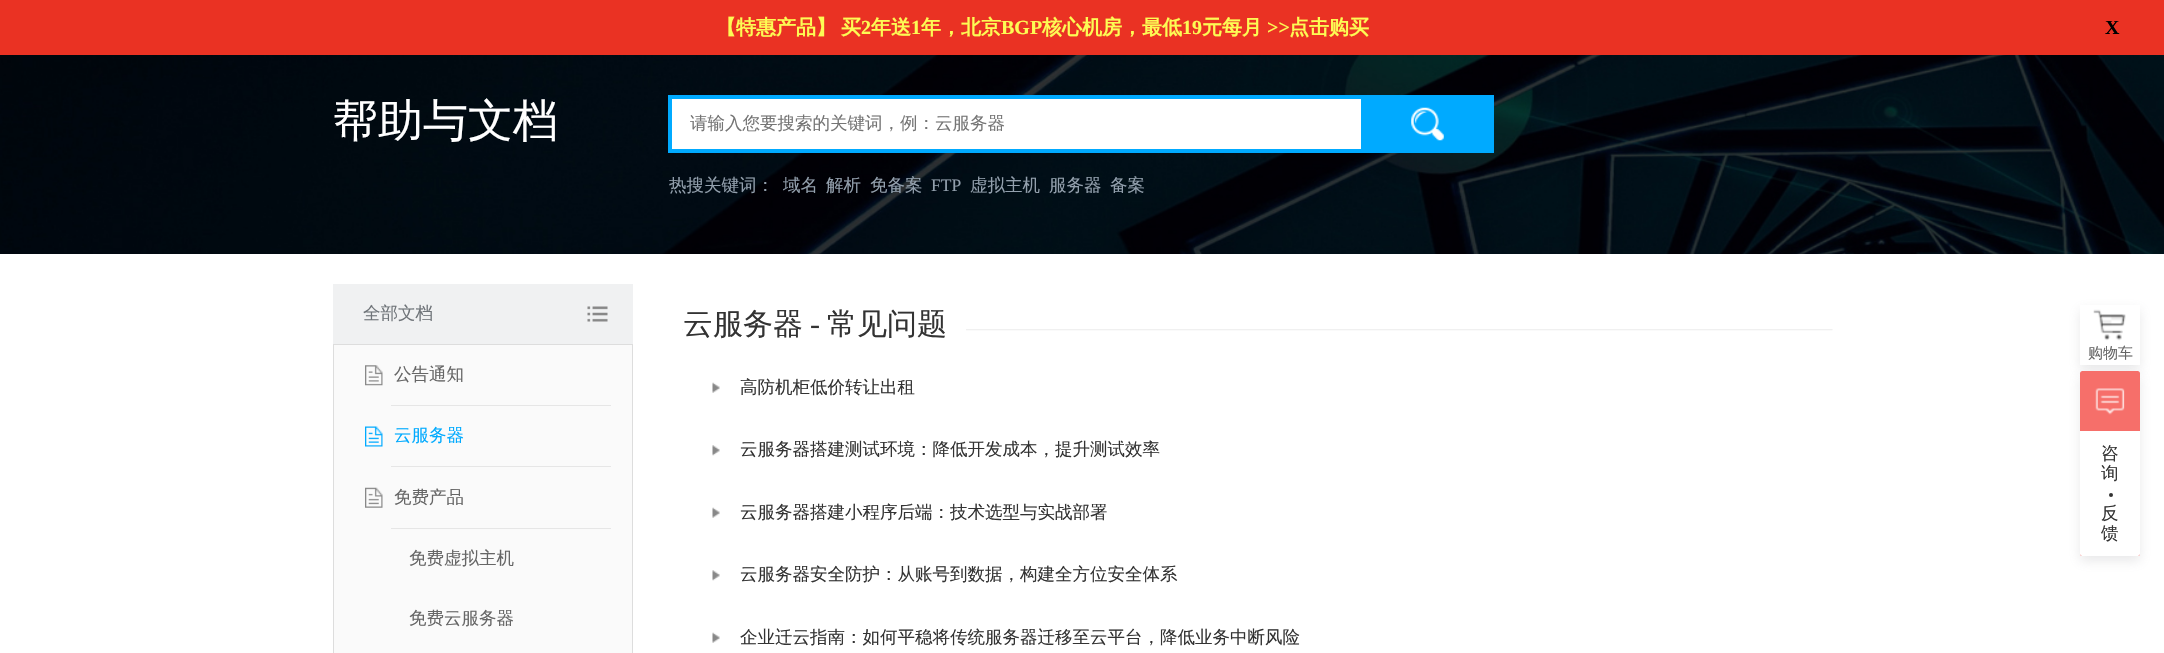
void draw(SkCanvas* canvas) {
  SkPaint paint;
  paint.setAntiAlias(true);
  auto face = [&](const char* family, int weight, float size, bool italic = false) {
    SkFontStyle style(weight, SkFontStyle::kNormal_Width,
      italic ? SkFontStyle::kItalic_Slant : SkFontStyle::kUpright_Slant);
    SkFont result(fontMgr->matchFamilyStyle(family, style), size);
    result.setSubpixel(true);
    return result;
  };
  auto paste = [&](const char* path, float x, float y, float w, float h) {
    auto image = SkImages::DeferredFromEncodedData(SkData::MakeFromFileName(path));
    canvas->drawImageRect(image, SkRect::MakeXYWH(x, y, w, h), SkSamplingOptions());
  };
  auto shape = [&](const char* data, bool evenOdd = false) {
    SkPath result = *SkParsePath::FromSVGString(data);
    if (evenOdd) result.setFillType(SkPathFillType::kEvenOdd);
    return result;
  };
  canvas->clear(0xffffffff);
  paint.setColor(0xffea3223);
  canvas->drawRect(SkRect::MakeXYWH(0, 0, 2164, 55), paint);
  paste("img/1.png", 0, 55, 2164, 199);
  paint.setColor(0xffffffff);
  canvas->drawRect(SkRect::MakeXYWH(672, 99, 689, 50), paint);
  paint.setStroke(true);
  paint.setStrokeWidth(4);
  paint.setColor(0xff00aaff);
  canvas->drawRect(SkRect::MakeXYWH(670, 97, 696, 54), paint);
  paint.setStroke(false);
  canvas->drawRect(SkRect::MakeXYWH(1361, 95, 133, 58), paint);
  paste("img/2.png", 1411, 107, 33, 34);
  paint.setColor(0xfff0f1f2);
  canvas->drawRect(SkRect::MakeXYWH(333, 284, 300, 60), paint);
  paste("img/3.png", 587, 306, 21, 16);
  paint.setColor(0xfffafafa);
  canvas->drawRect(SkRect::MakeXYWH(333.5f, 344.5f, 299, 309), paint);
  paint.setStroke(true);
  paint.setStrokeWidth(1);
  paint.setColor(0xffdddddd);
  canvas->drawRect(SkRect::MakeXYWH(333.5f, 344.5f, 299, 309), paint);
  paste("img/4.png", 365, 365, 18, 21);
  paint.setStroke(false);
  paint.setColor(0xffe6e6e6);
  canvas->drawRect(SkRect::MakeXYWH(391, 405, 220, 1), paint);
  paste("img/5.png", 365, 426, 18, 21);
  canvas->drawRect(SkRect::MakeXYWH(391, 466, 220, 1), paint);
  paste("img/6.png", 365, 487, 18, 21);
  canvas->drawRect(SkRect::MakeXYWH(391, 528, 220, 1), paint);
  paste("img/7.png", 682, 329, 1151, 2);
  paint.setColor(0xffffffff);
  canvas->drawRect(SkRect::MakeXYWH(683, 329, 283, 2), paint);
  paste("img/8.png", 712, 382, 8, 11);
  paste("img/9.png", 712, 445, 8, 11);
  paste("img/8.png", 712, 507, 8, 11);
  paste("img/9.png", 712, 570, 8, 11);
  paste("img/8.png", 712, 632, 8, 11);
  paint.setColor(0x338a8d93);
  paint.setMaskFilter(SkMaskFilter::MakeBlur(kNormal_SkBlurStyle, 6));
  canvas->drawRoundRect(SkRect::MakeXYWH(2080, 310, 60, 60), 2.5f, 2.5f, paint);
  paint.setMaskFilter(nullptr);
  paint.setColor(0xffffffff);
  canvas->drawRect(SkRect::MakeXYWH(2080, 305, 60, 60), paint);
  paste("img/10.png", 2093, 309, 33, 32);
  paint.setColor(0x338a8d93);
  paint.setMaskFilter(SkMaskFilter::MakeBlur(kNormal_SkBlurStyle, 6));
  canvas->drawRoundRect(SkRect::MakeXYWH(2080, 376, 60, 185), 2.5f, 2.5f, paint);
  paint.setMaskFilter(nullptr);
  paint.setColor(0xfff66f6a);
  canvas->drawRoundRect(SkRect::MakeXYWH(2080, 371, 60, 185), 2.5f, 2.5f, paint);
  paste("img/11.png", 2095, 388, 30, 27);
  paint.setColor(0xffffffff);
  canvas->drawPath(shape("M2080 431H2140V553.5C2140 555 2139 556 2137.5 556H2082.5C2081 556 2080 555 2080 553.5Z"), paint);
  paint.setColor(0xff333333);
  canvas->drawCircle(2111, 495, 2, paint);
  auto f0 = face("WenQuanYi Zen Hei", 700, 20);
  paint.setColor(0xfffdfb54);
  canvas->drawString("【特惠产品】", 716, 34, f0, paint);
  canvas->drawString("买", 841, 34, f0, paint);
  auto f1 = face("Liberation Serif", 700, 20);
  canvas->drawString("2", 861, 34, f1, paint);
  canvas->drawString("年送", 871, 34, f0, paint);
  canvas->drawString("1", 911, 34, f1, paint);
  canvas->drawString("年，北京", 921, 34, f0, paint);
  canvas->drawString("BGP", 1001, 34, f1, paint);
  canvas->drawString("核心机房，最低", 1042, 34, f0, paint);
  canvas->drawString("19", 1182, 34, f1, paint);
  canvas->drawString("元每月", 1202, 34, f0, paint);
  canvas->drawString(">>", 1267, 34, f1, paint);
  canvas->drawString("点击购买", 1289, 34, f0, paint);
  paint.setColor(0xff000000);
  canvas->drawString("X", 2105, 34, f1, paint);
  auto f2 = face("WenQuanYi Zen Hei", 500, 45);
  paint.setColor(0xffffffff);
  canvas->drawString("帮助与文档", 333, 136, f2, paint);
  auto f3 = face("WenQuanYi Zen Hei", 500, 17.5f);
  paint.setColor(0xff757575);
  canvas->drawString("请输入您要搜索的关键词，例：云服务器", 690, 129, f3, paint);
  paint.setColor(0xff93a0ad);
  {
    const struct { const char* s; float x, y; } items[] = {
      {"热搜关键词：", 669, 191},
      {"域名", 783, 191},
      {"解析", 826, 191},
      {"免备案", 870, 191},
    };
    for (auto [s, x, y] : items) {
      canvas->drawString(s, x, y, f3, paint);
    }
  }
  auto f4 = face("Liberation Serif", 400, 17.5f);
  canvas->drawString("FTP", 931, 191, f4, paint);
  {
    const struct { const char* s; float x, y; } items[] = {
      {"虚拟主机", 970, 191},
      {"服务器", 1049, 191},
      {"备案", 1110, 191},
    };
    for (auto [s, x, y] : items) {
      canvas->drawString(s, x, y, f3, paint);
    }
  }
  paint.setColor(0xff6f7479);
  canvas->drawString("全部文档", 363, 319, f3, paint);
  paint.setColor(0xff666666);
  canvas->drawString("公告通知", 394, 380, f3, paint);
  paint.setColor(0xff00aaff);
  canvas->drawString("云服务器", 394, 441, f3, paint);
  paint.setColor(0xff666666);
  {
    const struct { const char* s; float x, y; } items[] = {
      {"免费产品", 394, 503},
      {"免费虚拟主机", 409, 564},
      {"免费云服务器", 409, 624},
    };
    for (auto [s, x, y] : items) {
      canvas->drawString(s, x, y, f3, paint);
    }
  }
  auto f5 = face("WenQuanYi Zen Hei", 500, 30);
  paint.setColor(0xff333333);
  canvas->drawString("云服务器", 683, 334, f5, paint);
  auto f6 = face("Liberation Serif", 400, 30);
  canvas->drawString("-", 810, 334, f6, paint);
  canvas->drawString("常见问题", 827, 334, f5, paint);
  {
    const struct { const char* s; float x, y; } items[] = {
      {"高防机柜低价转让出租", 740, 393},
      {"云服务器搭建测试环境：降低开发成本，提升测试效率", 740, 455},
      {"云服务器搭建小程序后端：技术选型与实战部署", 740, 518},
      {"云服务器安全防护：从账号到数据，构建全方位安全体系", 740, 580},
      {"企业迁云指南：如何平稳将传统服务器迁移至云平台，降低业务中断风险", 740, 643},
    };
    for (auto [s, x, y] : items) {
      canvas->drawString(s, x, y, f3, paint);
    }
  }
  auto f7 = face("WenQuanYi Zen Hei", 500, 15);
  paint.setColor(0xff666666);
  canvas->drawString("购物车", 2088, 358, f7, paint);
  paint.setColor(0xff333333);
  {
    const struct { const char* s; float x, y; } items[] = {
      {"咨", 2101, 459},
      {"询", 2101, 479},
      {"反", 2101, 519},
      {"馈", 2101, 539},
    };
    for (auto [s, x, y] : items) {
      canvas->drawString(s, x, y, f3, paint);
    }
  }
}
